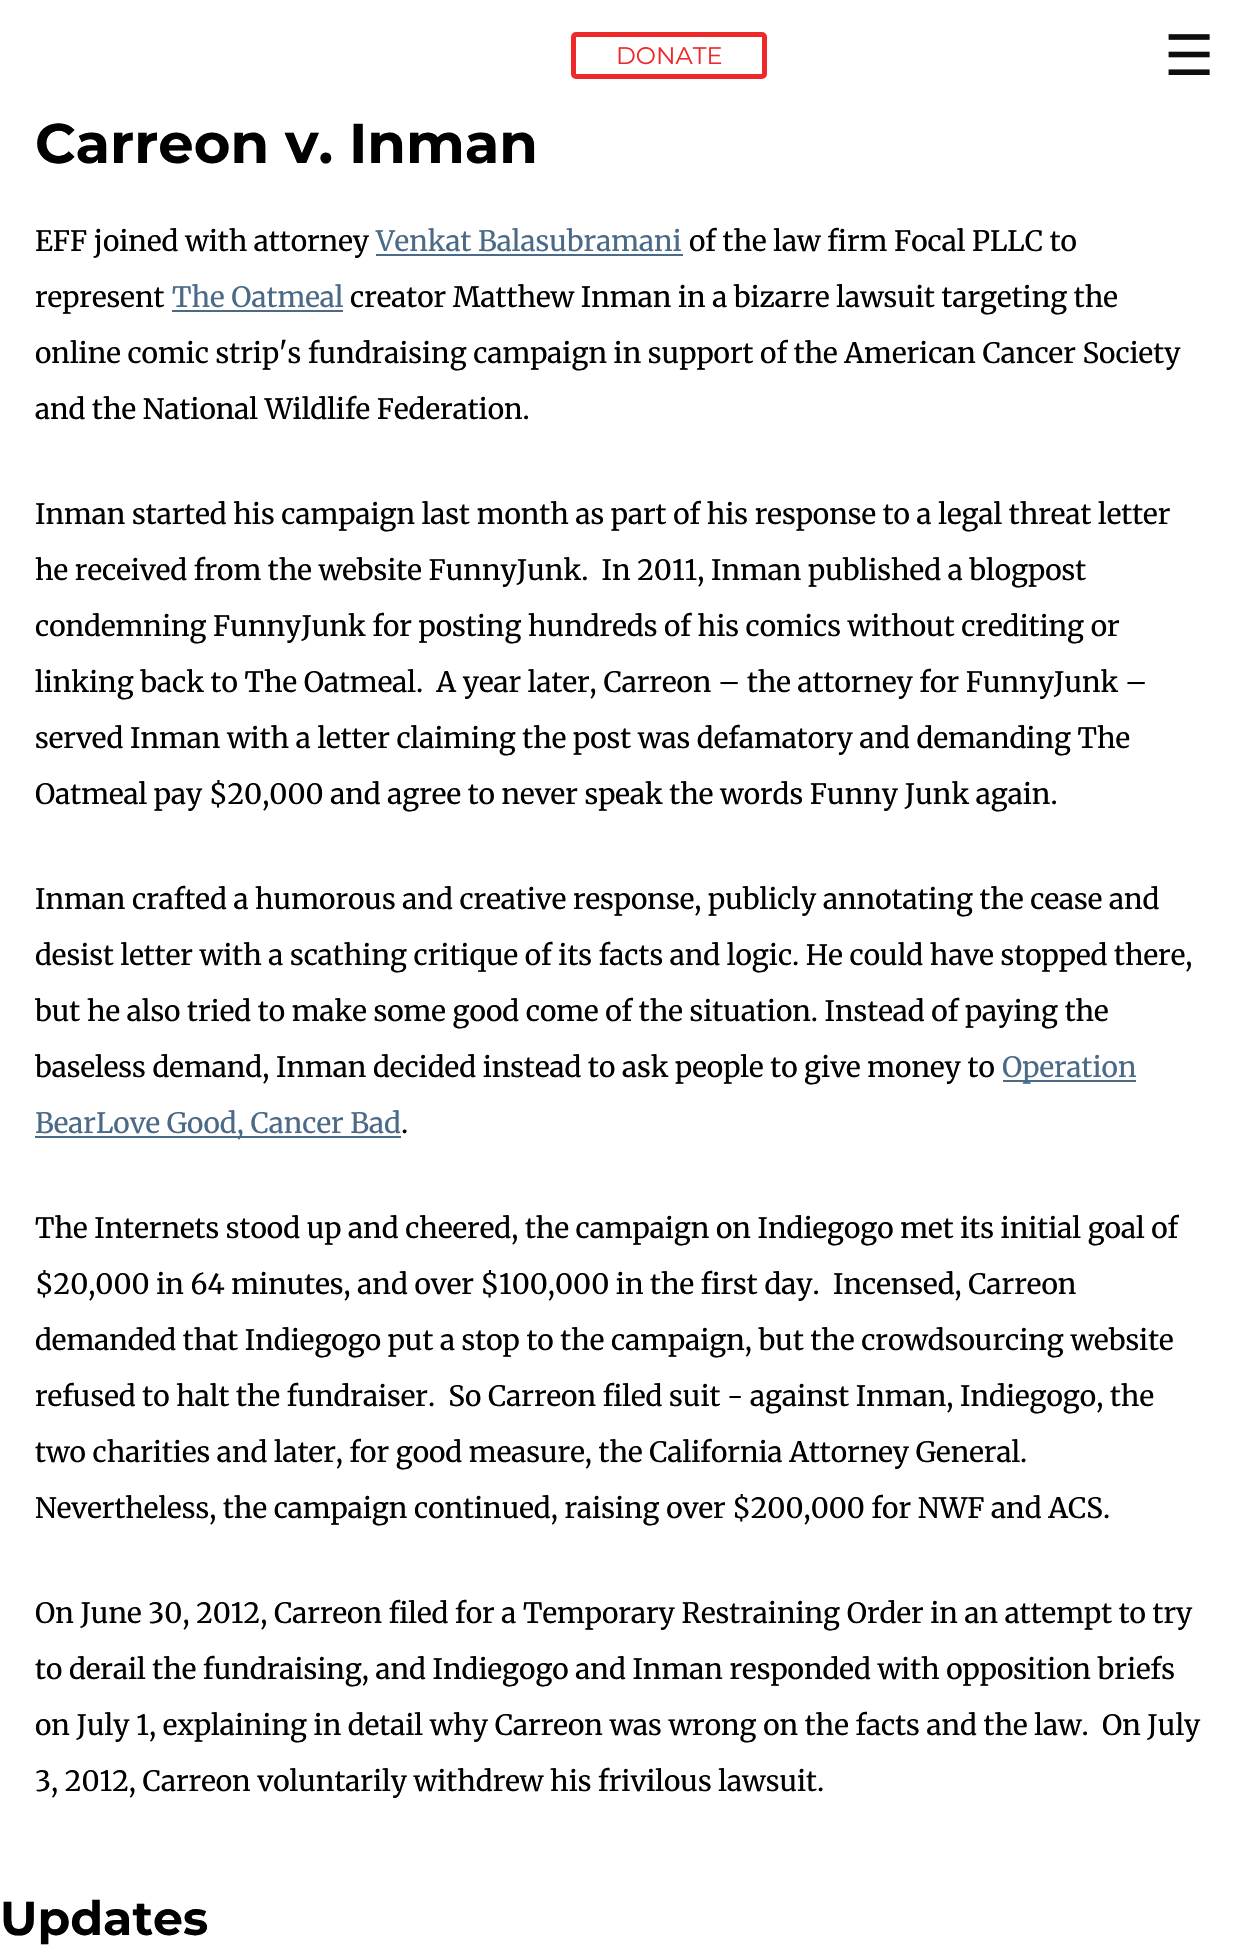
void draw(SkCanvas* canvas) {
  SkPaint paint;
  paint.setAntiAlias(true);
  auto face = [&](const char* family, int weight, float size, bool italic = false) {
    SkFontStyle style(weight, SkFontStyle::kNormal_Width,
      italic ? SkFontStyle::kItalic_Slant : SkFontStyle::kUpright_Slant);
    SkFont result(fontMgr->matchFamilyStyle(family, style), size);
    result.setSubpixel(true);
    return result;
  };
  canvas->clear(0xffffffff);
  paint.setStroke(true);
  paint.setStrokeWidth(5);
  paint.setColor(0xffed2929);
  canvas->drawRoundRect(SkRect::MakeXYWH(573.5f, 34.5f, 191, 42), 2.5f, 2.5f, paint);
  paint.setStroke(false);
  {
    const struct { float x, y, w, h; SkColor color; } items[] = {
      {376, 254, 307, 2, 0xff4b6a88},
      {172, 310, 171, 2, 0xff4b6a88},
      {1003, 1080, 133, 2, 0xff4b6a88},
      {35, 1136, 366, 2, 0xff4b6a88},
    };
    for (auto [x, y, w, h, color] : items) {
      paint.setColor(color);
      canvas->drawRect(SkRect::MakeXYWH(x, y, w, h), paint);
    }
  }
  auto f0 = face("Montserrat", 400, 24);
  paint.setColor(0xffed2929);
  canvas->drawString("DONATE", 616, 64, f0, paint);
  auto f1 = face("DejaVu Sans", 400, 56);
  paint.setColor(0xff0d0d0d);
  canvas->drawString("☰", 1164, 75, f1, paint);
  auto f2 = face("Montserrat", 700, 56);
  paint.setColor(0xff000000);
  canvas->drawString("Carreon v. Inman", 35, 163, f2, paint);
  auto f3 = face("Merriweather", 400, 28);
  canvas->drawString("EFF joined with attorney", 35, 251, f3, paint);
  paint.setColor(0xff4b6a88);
  canvas->drawString("Venkat Balasubramani", 376, 251, f3, paint);
  paint.setColor(0xff000000);
  canvas->drawString("of the law firm Focal PLLC to", 689, 251, f3, paint);
  canvas->drawString("represent", 35, 307, f3, paint);
  paint.setColor(0xff4b6a88);
  canvas->drawString("The Oatmeal", 172, 307, f3, paint);
  paint.setColor(0xff000000);
  {
    const struct { const char* s; float x, y; } items[] = {
      {"creator Matthew Inman in a bizarre lawsuit targeting the", 350, 307},
      {"online comic strip's fundraising campaign in support of the American Cancer Society", 35, 363},
      {"and the National Wildlife Federation.", 35, 419},
      {"Inman started his campaign last month as part of his response to a legal threat letter", 35, 524},
      {"he received from the website FunnyJunk.  In 2011, Inman published a blogpost", 35, 580},
      {"condemning FunnyJunk for posting hundreds of his comics without crediting or", 35, 636},
      {"linking back to The Oatmeal.  A year later, Carreon – the attorney for FunnyJunk –", 35, 692},
      {"served Inman with a letter claiming the post was defamatory and demanding The", 35, 748},
      {"Oatmeal pay $20,000 and agree to never speak the words Funny Junk again.", 35, 804},
      {"Inman crafted a humorous and creative response, publicly annotating the cease and", 35, 909},
      {"desist letter with a scathing critique of its facts and logic. He could have stopped there,", 35, 965},
      {"but he also tried to make some good come of the situation. Instead of paying the", 35, 1021},
      {"baseless demand, Inman decided instead to ask people to give money to", 35, 1077},
    };
    for (auto [s, x, y] : items) {
      canvas->drawString(s, x, y, f3, paint);
    }
  }
  paint.setColor(0xff4b6a88);
  canvas->drawString("Operation", 1002, 1077, f3, paint);
  canvas->drawString("BearLove Good, Cancer Bad", 35, 1133, f3, paint);
  paint.setColor(0xff000000);
  {
    const struct { const char* s; float x, y; } items[] = {
      {".", 401, 1133},
      {"The Internets stood up and cheered, the campaign on Indiegogo met its initial goal of", 35, 1238},
      {"$20,000 in 64 minutes, and over $100,000 in the first day.  Incensed, Carreon", 35, 1294},
      {"demanded that Indiegogo put a stop to the campaign, but the crowdsourcing website", 35, 1350},
      {"refused to halt the fundraiser.  So Carreon filed suit - against Inman, Indiegogo, the", 35, 1406},
      {"two charities and later, for good measure, the California Attorney General.", 35, 1462},
      {"Nevertheless, the campaign continued, raising over $200,000 for NWF and ACS.", 35, 1518},
      {"On June 30, 2012, Carreon filed for a Temporary Restraining Order in an attempt to try", 35, 1623},
      {"to derail the fundraising, and Indiegogo and Inman responded with opposition briefs", 35, 1679},
      {"on July 1, explaining in detail why Carreon was wrong on the facts and the law.  On July", 35, 1735},
      {"3, 2012, Carreon voluntarily withdrew his frivilous lawsuit.", 35, 1791},
    };
    for (auto [s, x, y] : items) {
      canvas->drawString(s, x, y, f3, paint);
    }
  }
  auto f4 = face("Montserrat", 700, 47.5f);
  canvas->drawString("Updates", 0, 1935, f4, paint);
}
